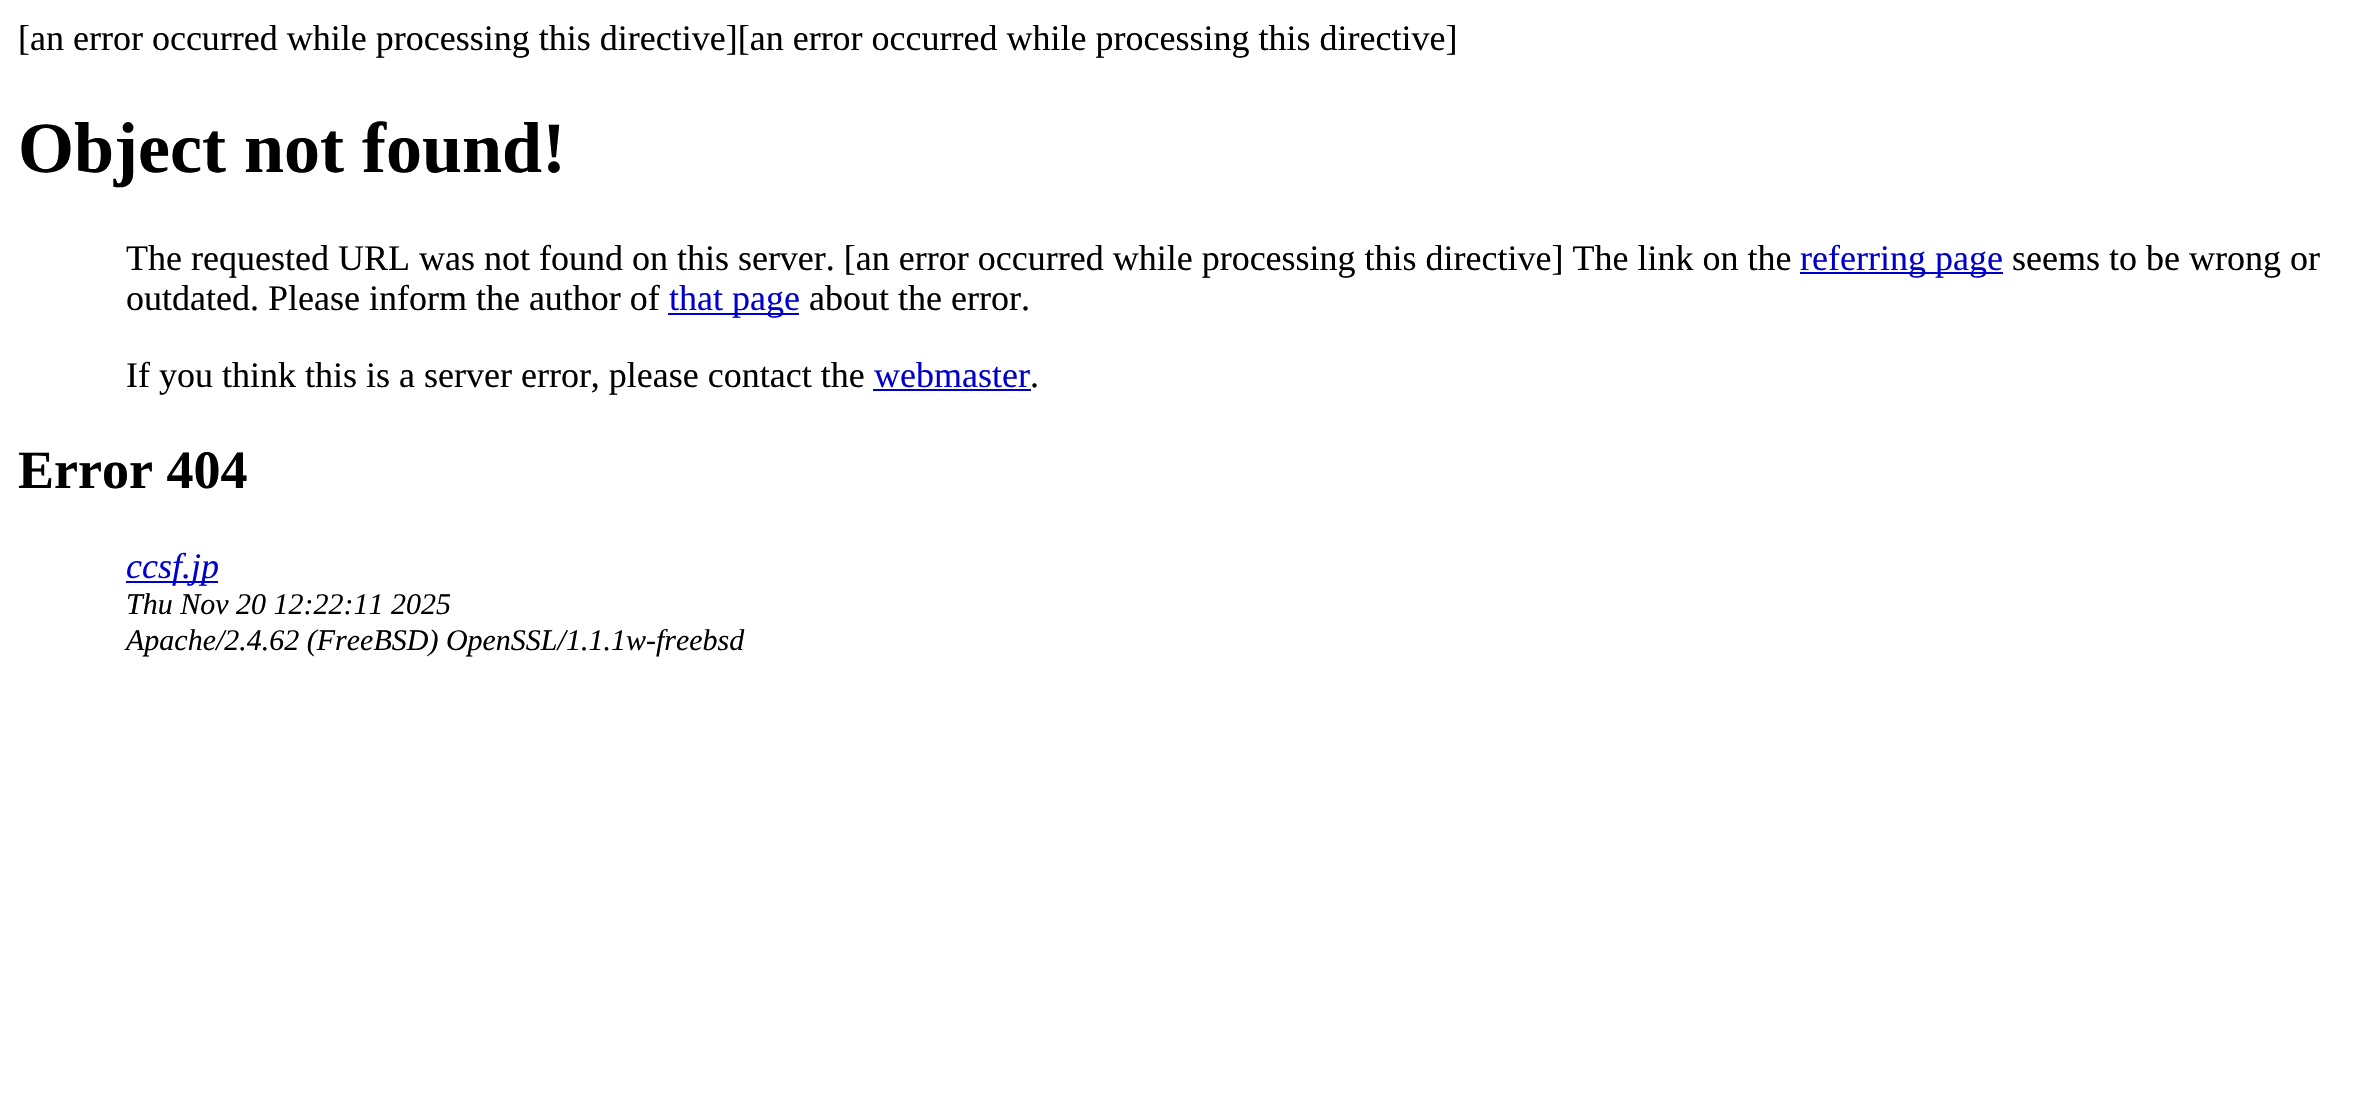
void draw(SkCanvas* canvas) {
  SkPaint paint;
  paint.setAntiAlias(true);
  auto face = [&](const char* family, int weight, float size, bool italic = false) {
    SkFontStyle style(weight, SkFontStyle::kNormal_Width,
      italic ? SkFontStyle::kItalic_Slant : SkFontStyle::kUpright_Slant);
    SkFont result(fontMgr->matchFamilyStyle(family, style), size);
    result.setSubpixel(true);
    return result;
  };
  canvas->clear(0xffffffff);
  {
    const struct { float x, y, w, h; SkColor color; } items[] = {
      {1800, 272, 203, 2, 0xff0000cc},
      {668, 313, 131, 2, 0xff0000cc},
      {873, 389, 158, 2, 0xff0000cc},
      {126, 581, 92, 2, 0xff0000cc},
    };
    for (auto [x, y, w, h, color] : items) {
      paint.setColor(color);
      canvas->drawRect(SkRect::MakeXYWH(x, y, w, h), paint);
    }
  }
  auto f0 = face("Liberation Serif", 400, 36);
  paint.setColor(0xff000000);
  canvas->drawString("[an error occurred while processing this directive][an error occurred while processing this directive]", 18, 50, f0, paint);
  auto f1 = face("Liberation Serif", 700, 72);
  canvas->drawString("Object not found!", 18, 172, f1, paint);
  canvas->drawString("The requested URL was not found on this server. [an error occurred while processing this directive] The link on the", 126, 270, f0, paint);
  paint.setColor(0xff0000cc);
  canvas->drawString("referring page", 1800, 270, f0, paint);
  paint.setColor(0xff000000);
  canvas->drawString("seems to be wrong or", 2012, 270, f0, paint);
  canvas->drawString("outdated. Please inform the author of", 126, 310, f0, paint);
  paint.setColor(0xff0000cc);
  canvas->drawString("that page", 669, 310, f0, paint);
  paint.setColor(0xff000000);
  canvas->drawString("about the error.", 809, 310, f0, paint);
  canvas->drawString("If you think this is a server error, please contact the", 126, 387, f0, paint);
  paint.setColor(0xff0000cc);
  canvas->drawString("webmaster", 874, 387, f0, paint);
  paint.setColor(0xff000000);
  canvas->drawString(".", 1030, 387, f0, paint);
  auto f2 = face("Liberation Serif", 700, 54);
  canvas->drawString("Error 404", 18, 488, f2, paint);
  auto f3 = face("Liberation Serif", 400, 36, true);
  paint.setColor(0xff0000cc);
  canvas->drawString("ccsf.jp", 126, 578, f3, paint);
  auto f4 = face("Liberation Serif", 400, 30, true);
  paint.setColor(0xff000000);
  canvas->drawString("Thu Nov 20 12:22:11 2025", 126, 614, f4, paint);
  canvas->drawString("Apache/2.4.62 (FreeBSD) OpenSSL/1.1.1w-freebsd", 126, 650, f4, paint);
}
